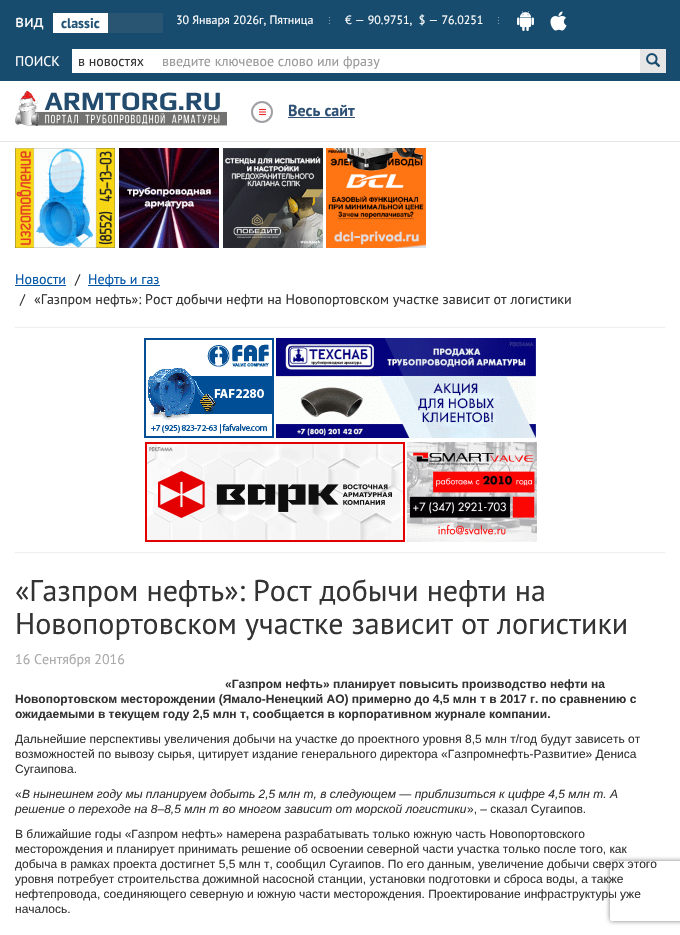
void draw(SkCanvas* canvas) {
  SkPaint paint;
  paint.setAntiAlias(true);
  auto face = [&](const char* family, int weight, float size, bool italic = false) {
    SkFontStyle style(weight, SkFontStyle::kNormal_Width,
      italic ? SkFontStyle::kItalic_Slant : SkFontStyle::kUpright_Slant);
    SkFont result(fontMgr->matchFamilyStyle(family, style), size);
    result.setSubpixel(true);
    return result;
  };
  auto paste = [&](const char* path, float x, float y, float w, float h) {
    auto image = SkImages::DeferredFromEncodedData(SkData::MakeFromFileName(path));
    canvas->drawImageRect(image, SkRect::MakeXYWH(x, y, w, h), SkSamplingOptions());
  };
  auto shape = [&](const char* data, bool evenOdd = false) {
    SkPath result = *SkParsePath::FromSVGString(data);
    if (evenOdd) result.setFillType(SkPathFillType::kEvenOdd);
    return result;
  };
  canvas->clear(0xffffffff);
  {
    const struct { float x, y, w, h; SkColor color; } items[] = {
      {0, 0, 680, 81, 0xff184c6f},
      {108, 13, 55, 20, 0xff2a5572},
      {53, 13, 55, 20, 0xffffffff},
    };
    for (auto [x, y, w, h, color] : items) {
      paint.setColor(color);
      canvas->drawRect(SkRect::MakeXYWH(x, y, w, h), paint);
    }
  }
  paste("img/1.png", 329, 17, 1, 7);
  paste("img/1.png", 498, 17, 1, 7);
  paste("img/2.png", 517, 11, 17, 20);
  paste("img/3.png", 550, 11, 17, 20);
  canvas->drawRect(SkRect::MakeXYWH(72, 49, 568, 24), paint);
  paint.setColor(0xffe6e6e6);
  canvas->drawRect(SkRect::MakeXYWH(640, 49, 26, 24), paint);
  paste("img/4.png", 646, 53, 15, 14);
  canvas->drawRect(SkRect::MakeXYWH(0, 141, 680, 1), paint);
  paste("img/5.png", 15, 91, 212, 35);
  paint.setStroke(true);
  paint.setStrokeWidth(2);
  paint.setColor(0xffa1a1a5);
  canvas->drawCircle(262, 112, 10, paint);
  paste("img/6.png", 259, 108, 7, 8);
  paint.setStroke(false);
  paint.setColor(0xff2f5175);
  canvas->drawRect(SkRect::MakeXYWH(288, 117, 67, 1), paint);
  paste("img/7.png", 15, 148, 100, 100);
  paste("img/8.png", 119, 148, 100, 100);
  paste("img/9.png", 223, 148, 100, 100);
  paste("img/10.png", 326, 148, 100, 100);
  {
    const struct { float x, y, w, h; SkColor color; } items[] = {
      {15, 285, 51, 1, 0xff0054a6},
      {88, 285, 72, 1, 0xff0054a6},
      {15, 327, 650, 1, 0xffeeeeee},
    };
    for (auto [x, y, w, h, color] : items) {
      paint.setColor(color);
      canvas->drawRect(SkRect::MakeXYWH(x, y, w, h), paint);
    }
  }
  paste("img/11.png", 144, 338, 130, 100);
  paste("img/12.png", 276, 338, 260, 100);
  paste("img/13.png", 145, 442, 260, 100);
  paste("img/14.png", 407, 442, 130, 100);
  canvas->drawRect(SkRect::MakeXYWH(15, 552, 650, 1), paint);
  canvas->save();
  canvas->clipPath(shape("M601 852H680V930H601ZM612 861H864C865 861 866 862 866 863V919C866 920 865 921 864 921H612C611 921 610 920 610 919V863C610 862 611 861 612 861Z", true), true);
  paint.setColor(0xff808080);
  paint.setMaskFilter(SkMaskFilter::MakeBlur(kNormal_SkBlurStyle, 2.5f));
  canvas->drawRoundRect(SkRect::MakeXYWH(610, 861, 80, 60), 2, 2, paint);
  paint.setMaskFilter(nullptr);
  canvas->restore();
  auto f0 = face("PT Sans", 400, 18);
  paint.setColor(0xffffffff);
  canvas->drawString("вид", 15, 27, f0, paint);
  auto f1 = face("PT Sans", 700, 14);
  paint.setColor(0xff215476);
  canvas->drawString("classic", 61, 28, f1, paint);
  auto f2 = face("PT Sans", 400, 12);
  paint.setColor(0xffffffff);
  canvas->drawString("30 Января 2026г, Пятница", 176, 24, f2, paint);
  canvas->drawString("€ — 90.9751,  $ — 76.0251", 345, 24, f2, paint);
  auto f3 = face("PT Sans", 400, 14);
  canvas->drawString("ПОИСК", 15, 66, f3, paint);
  paint.setColor(0xff333333);
  canvas->drawString("в новостях", 78, 66, f3, paint);
  paint.setColor(0xff999999);
  canvas->drawString("введите ключевое слово или фразу", 162, 66, f3, paint);
  auto f4 = face("PT Sans", 700, 16);
  paint.setColor(0xff2f5175);
  canvas->drawString("Весь сайт", 288, 116, f4, paint);
  paint.setColor(0xff0054a6);
  canvas->drawString("Новости", 15, 284, f3, paint);
  paint.setColor(0xff333333);
  canvas->drawString("/", 75, 284, f3, paint);
  paint.setColor(0xff0054a6);
  canvas->drawString("Нефть и газ", 88, 284, f3, paint);
  paint.setColor(0xff333333);
  canvas->drawString("/", 20, 304, f3, paint);
  canvas->drawString("«Газпром нефть»: Рост добычи нефти на Новопортовском участке зависит от логистики", 34, 304, f3, paint);
  auto f5 = face("PT Sans", 400, 30);
  canvas->drawString("«Газпром нефть»: Рост добычи нефти на", 15, 601, f5, paint);
  canvas->drawString("Новопортовском участке зависит от логистики", 15, 634, f5, paint);
  paint.setColor(0xffaaaaaa);
  canvas->drawString("16 Сентября 2016", 15, 664, f3, paint);
  auto f6 = face("Liberation Sans", 700, 12);
  paint.setColor(0xff333333);
  {
    const struct { const char* s; float x, y; } items[] = {
      {"«Газпром нефть» планирует повысить производство нефти на", 225, 688},
      {"Новопортовском месторождении (Ямало-Ненецкий АО) примерно до 4,5 млн т в 2017 г. по сравнению с", 15, 703},
      {"ожидаемыми в текущем году 2,5 млн т, сообщается в корпоративном журнале компании.", 15, 718},
    };
    for (auto [s, x, y] : items) {
      canvas->drawString(s, x, y, f6, paint);
    }
  }
  auto f7 = face("Liberation Sans", 400, 12);
  {
    const struct { const char* s; float x, y; } items[] = {
      {"Дальнейшие перспективы увеличения добычи на участке до проектного уровня 8,5 млн т/год будут зависеть от", 15, 743},
      {"возможностей по вывозу сырья, цитирует издание генерального директора «Газпромнефть-Развитие» Дениса", 15, 758},
      {"Сугаипова.", 15, 773},
      {"«", 15, 798},
    };
    for (auto [s, x, y] : items) {
      canvas->drawString(s, x, y, f7, paint);
    }
  }
  auto f8 = face("Liberation Sans", 400, 12, true);
  canvas->drawString("В нынешнем году мы планируем добыть 2,5 млн т, в следующем — приблизиться к цифре 4,5 млн т. А", 22, 798, f8, paint);
  canvas->drawString("решение о переходе на 8–8,5 млн т во многом зависит от морской логистики", 15, 813, f8, paint);
  {
    const struct { const char* s; float x, y; } items[] = {
      {"», – сказал Сугаипов.", 467, 813},
      {"В ближайшие годы «Газпром нефть» намерена разрабатывать только южную часть Новопортовского", 15, 838},
      {"месторождения и планирует принимать решение об освоении северной части участка только после того, как", 15, 853},
      {"добыча в рамках проекта достигнет 5,5 млн т, сообщил Сугаипов. По его данным, увеличение добычи сверх этого", 15, 868},
      {"уровня потребует строительства дожимной насосной станции, установки подготовки и сброса воды, а также", 15, 883},
      {"нефтепровода, соединяющего северную и южную части месторождения. Проектирование инфраструктуры уже", 15, 898},
      {"началось.", 15, 913},
    };
    for (auto [s, x, y] : items) {
      canvas->drawString(s, x, y, f7, paint);
    }
  }
}
